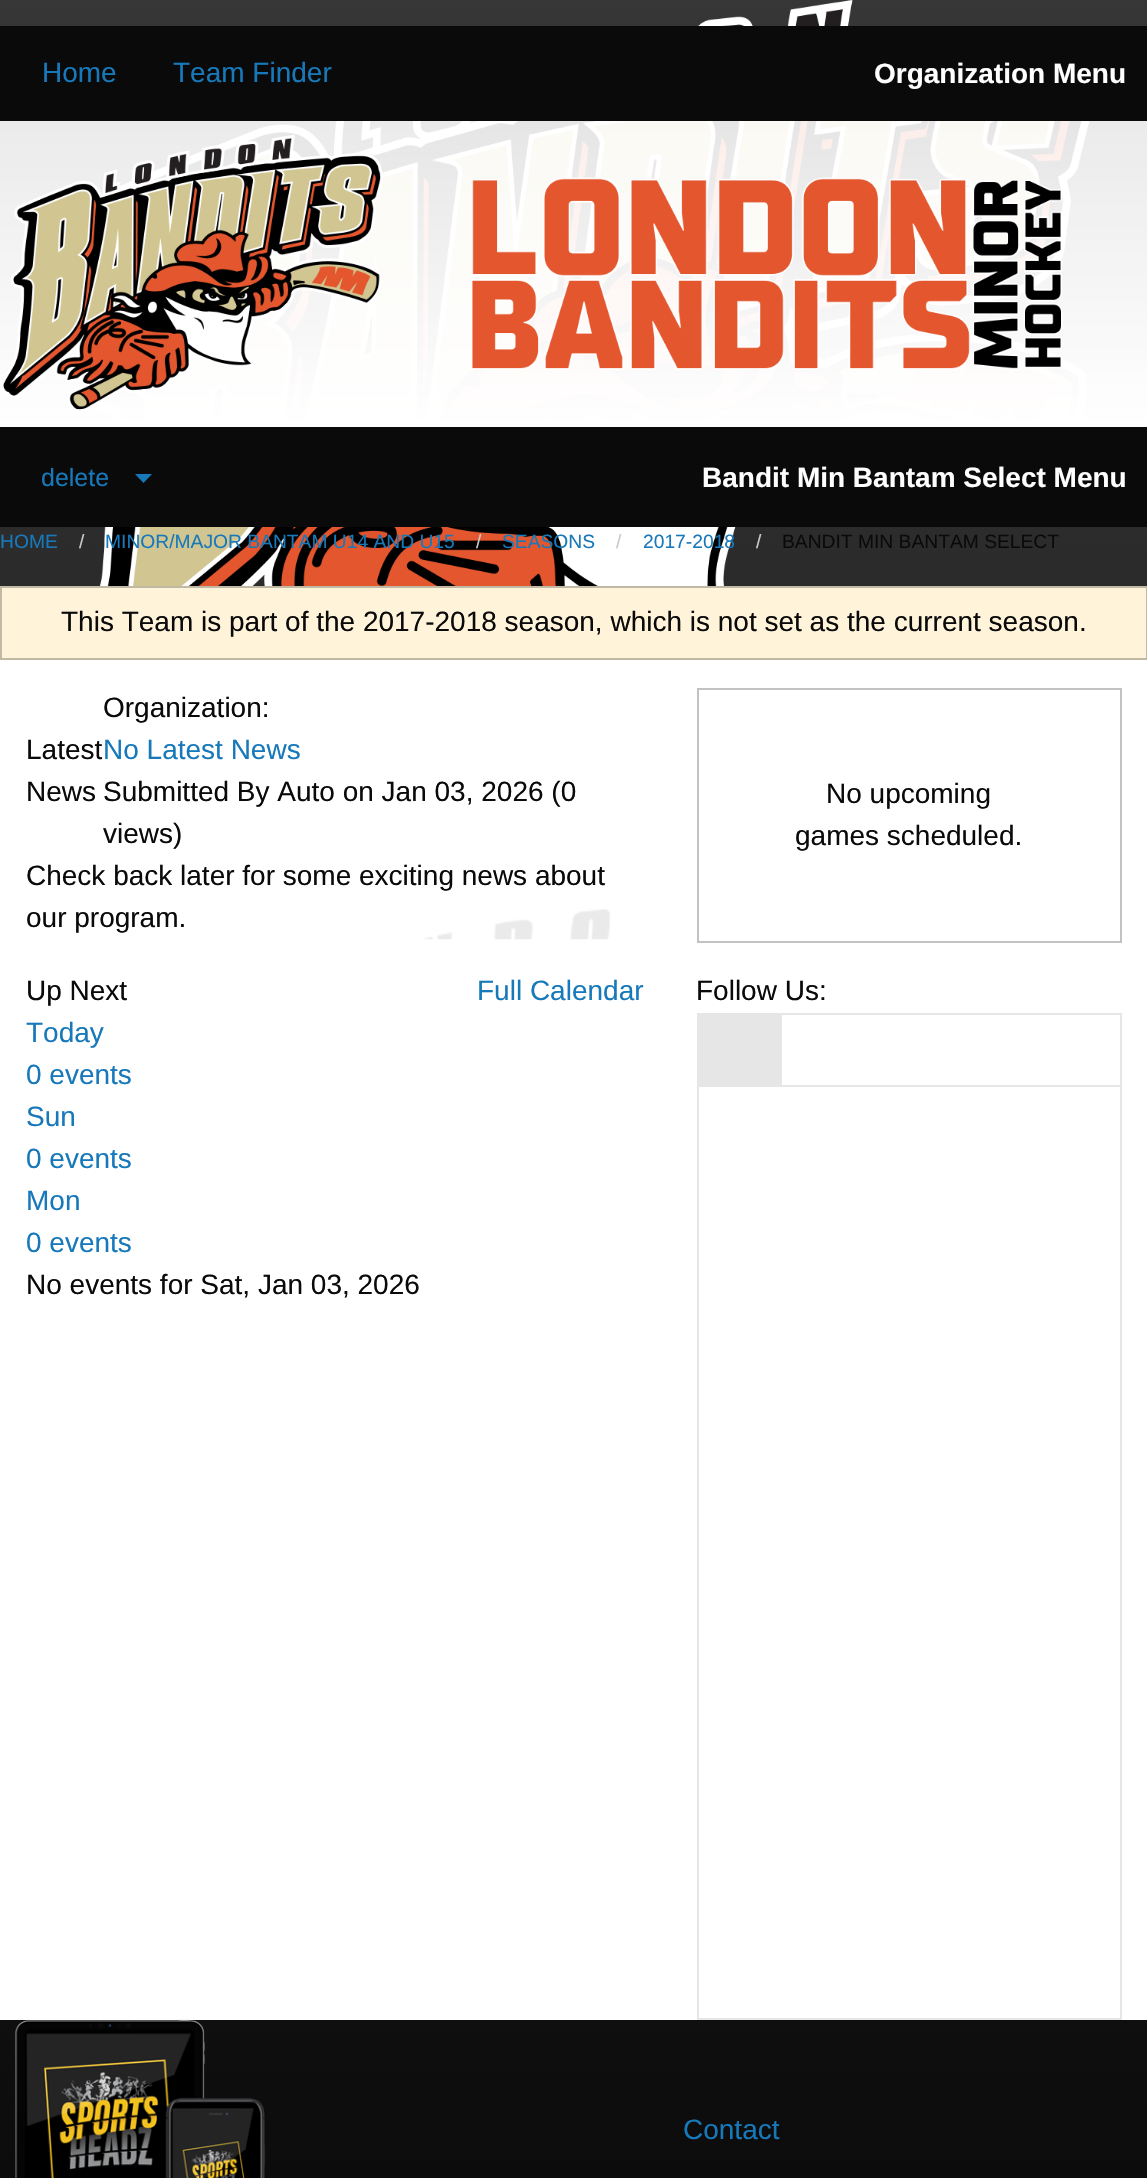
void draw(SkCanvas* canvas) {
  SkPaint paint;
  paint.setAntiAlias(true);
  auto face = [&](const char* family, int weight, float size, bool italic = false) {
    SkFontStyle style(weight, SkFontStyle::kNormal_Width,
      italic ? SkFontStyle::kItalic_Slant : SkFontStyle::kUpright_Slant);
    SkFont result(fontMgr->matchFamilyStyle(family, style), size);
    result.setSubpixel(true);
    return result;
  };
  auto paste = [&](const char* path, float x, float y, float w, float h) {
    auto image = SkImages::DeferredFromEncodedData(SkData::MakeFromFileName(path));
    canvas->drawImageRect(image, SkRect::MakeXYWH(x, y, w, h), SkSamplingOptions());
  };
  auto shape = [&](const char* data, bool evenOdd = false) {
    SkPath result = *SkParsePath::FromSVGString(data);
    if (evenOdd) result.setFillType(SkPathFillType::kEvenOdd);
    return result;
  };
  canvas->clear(0xffffffff);
  paste("img/1.png", 0, 0, 1147, 2178);
  paint.setColor(0xff0a0a0a);
  canvas->drawRect(SkRect::MakeXYWH(0, 26, 1147, 95), paint);
  paste("img/2.png", 3, 135, 380, 275);
  paste("img/3.png", 471, 177, 592, 193);
  canvas->drawRect(SkRect::MakeXYWH(0, 427, 1147, 100), paint);
  paint.setColor(0xff1779ba);
  canvas->drawPath(shape("M135 474H152L143.5 483Z"), paint);
  paint.setColor(0xffffffff);
  canvas->drawRect(SkRect::MakeXYWH(0, 660, 1147, 1360), paint);
  paint.setColor(0xfffff3d9);
  canvas->drawRect(SkRect::MakeXYWH(1, 587, 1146, 72), paint);
  paint.setStroke(true);
  paint.setStrokeWidth(2);
  paint.setColor(0xffc2b9a5);
  canvas->drawRect(SkRect::MakeXYWH(1, 587, 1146, 72), paint);
  paste("img/4.png", 421, 908, 191, 32);
  paint.setStroke(false);
  paint.setColor(0xe6ffffff);
  canvas->drawRect(SkRect::MakeXYWH(421, 908, 191, 32), paint);
  paint.setStroke(true);
  paint.setColor(0xffc2c2c2);
  canvas->drawRect(SkRect::MakeXYWH(698, 689, 423, 253), paint);
  paint.setColor(0xffe6e6e6);
  canvas->drawRect(SkRect::MakeXYWH(698, 1014, 423, 72), paint);
  paint.setStroke(false);
  {
    const struct { float x, y, w, h; SkColor color; } items[] = {
      {699, 1015, 83, 70, 0xffe6e6e6},
      {1120, 1087, 2, 933, 0xffe6e6e6},
      {697, 2018, 425, 2, 0xffe6e6e6},
      {697, 1087, 2, 933, 0xffe6e6e6},
    };
    for (auto [x, y, w, h, color] : items) {
      paint.setColor(color);
      canvas->drawRect(SkRect::MakeXYWH(x, y, w, h), paint);
    }
  }
  paste("img/5.png", 15, 2019, 251, 159);
  auto f0 = face("Liberation Sans", 400, 28);
  paint.setColor(0xff1779ba);
  canvas->drawString("Home", 42, 82, f0, paint);
  canvas->drawString("Team Finder", 173, 82, f0, paint);
  auto f1 = face("Liberation Sans", 700, 28);
  paint.setColor(0xfffefefe);
  canvas->drawString("Organization Menu", 874, 83, f1, paint);
  auto f2 = face("Liberation Sans", 400, 25);
  paint.setColor(0xff1779ba);
  canvas->drawString("delete", 41, 486, f2, paint);
  paint.setColor(0xfffefefe);
  canvas->drawString("Bandit Min Bantam Select Menu", 702, 487, f1, paint);
  auto f3 = face("Liberation Sans", 400, 19.25f);
  paint.setColor(0xff1779ba);
  canvas->drawString("HOME", 0, 548, f3, paint);
  paint.setColor(0xffcacaca);
  canvas->drawString("/", 79, 548, f3, paint);
  paint.setColor(0xff1779ba);
  canvas->drawString("MINOR/MAJOR BANTAM U14 AND U15", 105, 548, f3, paint);
  paint.setColor(0xffcacaca);
  canvas->drawString("/", 476, 548, f3, paint);
  paint.setColor(0xff1779ba);
  canvas->drawString("SEASONS", 502, 548, f3, paint);
  paint.setColor(0xffcacaca);
  canvas->drawString("/", 616, 548, f3, paint);
  paint.setColor(0xff1779ba);
  canvas->drawString("2017-2018", 643, 548, f3, paint);
  paint.setColor(0xffcacaca);
  canvas->drawString("/", 756, 548, f3, paint);
  paint.setColor(0xff0a0a0a);
  canvas->drawString("BANDIT MIN BANTAM SELECT", 782, 548, f3, paint);
  {
    const struct { const char* s; float x, y; } items[] = {
      {"This Team is part of the 2017-2018 season, which is not set as the current season.", 61, 631},
      {"Latest", 26, 759},
      {"News", 26, 801},
      {"Organization:", 103, 717},
    };
    for (auto [s, x, y] : items) {
      canvas->drawString(s, x, y, f0, paint);
    }
  }
  paint.setColor(0xff1779ba);
  canvas->drawString("No Latest News", 103, 759, f0, paint);
  paint.setColor(0xff0a0a0a);
  {
    const struct { const char* s; float x, y; } items[] = {
      {"Submitted By Auto on Jan 03, 2026 (0", 103, 801},
      {"views)", 103, 843},
      {"Check back later for some exciting news about", 26, 885},
      {"our program.", 26, 927},
      {"No upcoming", 826, 803},
      {"games scheduled.", 795, 845},
      {"Up Next", 26, 1000},
    };
    for (auto [s, x, y] : items) {
      canvas->drawString(s, x, y, f0, paint);
    }
  }
  paint.setColor(0xff1779ba);
  {
    const struct { const char* s; float x, y; } items[] = {
      {"Full Calendar", 477, 1000},
      {"Today", 26, 1042},
      {"0 events", 26, 1084},
      {"Sun", 26, 1126},
      {"0 events", 26, 1168},
      {"Mon", 26, 1210},
      {"0 events", 26, 1252},
    };
    for (auto [s, x, y] : items) {
      canvas->drawString(s, x, y, f0, paint);
    }
  }
  paint.setColor(0xff0a0a0a);
  canvas->drawString("No events for Sat, Jan 03, 2026", 26, 1294, f0, paint);
  canvas->drawString("Follow Us:", 696, 1000, f0, paint);
  paint.setColor(0xff1779ba);
  canvas->drawString("Contact", 683, 2139, f0, paint);
}
